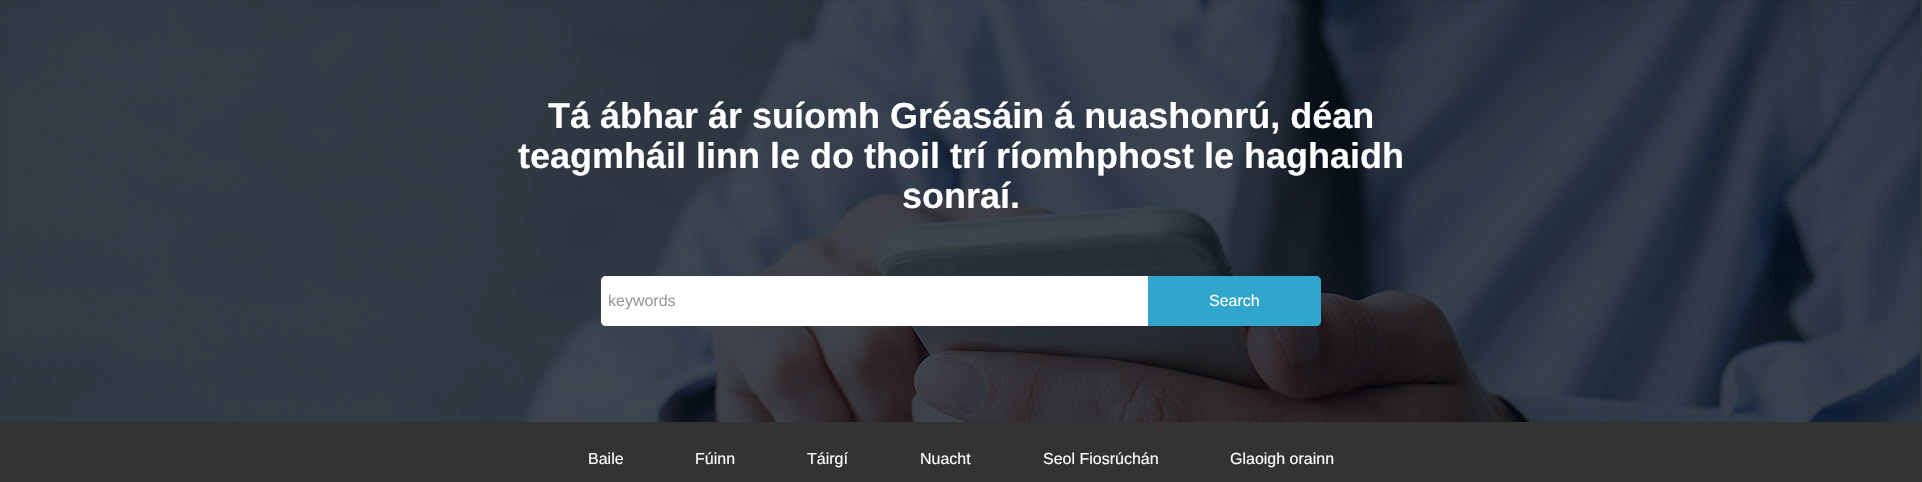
void draw(SkCanvas* canvas) {
  SkPaint paint;
  paint.setAntiAlias(true);
  auto face = [&](const char* family, int weight, float size, bool italic = false) {
    SkFontStyle style(weight, SkFontStyle::kNormal_Width,
      italic ? SkFontStyle::kItalic_Slant : SkFontStyle::kUpright_Slant);
    SkFont result(fontMgr->matchFamilyStyle(family, style), size);
    result.setSubpixel(true);
    return result;
  };
  auto paste = [&](const char* path, float x, float y, float w, float h) {
    auto image = SkImages::DeferredFromEncodedData(SkData::MakeFromFileName(path));
    canvas->drawImageRect(image, SkRect::MakeXYWH(x, y, w, h), SkSamplingOptions());
  };
  auto shape = [&](const char* data, bool evenOdd = false) {
    SkPath result = *SkParsePath::FromSVGString(data);
    if (evenOdd) result.setFillType(SkPathFillType::kEvenOdd);
    return result;
  };
  canvas->clear(0xffffffff);
  paste("img/1.png", 0, 0, 1922, 422);
  paint.setColor(0xffffffff);
  canvas->drawPath(shape("M606 276H1148V326H606C603 326 601 324 601 321V281C601 278 603 276 606 276Z"), paint);
  paint.setColor(0xff31a6cc);
  canvas->drawPath(shape("M1148 276H1316C1319 276 1321 278 1321 281V321C1321 324 1319 326 1316 326H1148Z"), paint);
  paint.setColor(0xff333333);
  canvas->drawRect(SkRect::MakeXYWH(0, 422, 1922, 60), paint);
  auto f0 = face("Liberation Sans", 700, 36);
  paint.setColor(0xffffffff);
  {
    const struct { const char* s; float x, y; } items[] = {
      {"Tá ábhar ár suíomh Gréasáin á nuashonrú, déan", 548, 128},
      {"teagmháil linn le do thoil trí ríomhphost le haghaidh", 518, 168},
      {"sonraí.", 902, 208},
    };
    for (auto [s, x, y] : items) {
      canvas->drawString(s, x, y, f0, paint);
    }
  }
  auto f1 = face("Liberation Sans", 400, 16);
  paint.setColor(0xff999999);
  canvas->drawString("keywords", 608, 306, f1, paint);
  paint.setColor(0xffffffff);
  {
    const struct { const char* s; float x, y; } items[] = {
      {"Search", 1209, 306},
      {"Baile", 588, 464},
      {"Fúinn", 695, 464},
      {"Táirgí", 807, 464},
      {"Nuacht", 920, 464},
      {"Seol Fiosrúchán", 1043, 464},
      {"Glaoigh orainn", 1230, 464},
    };
    for (auto [s, x, y] : items) {
      canvas->drawString(s, x, y, f1, paint);
    }
  }
}
